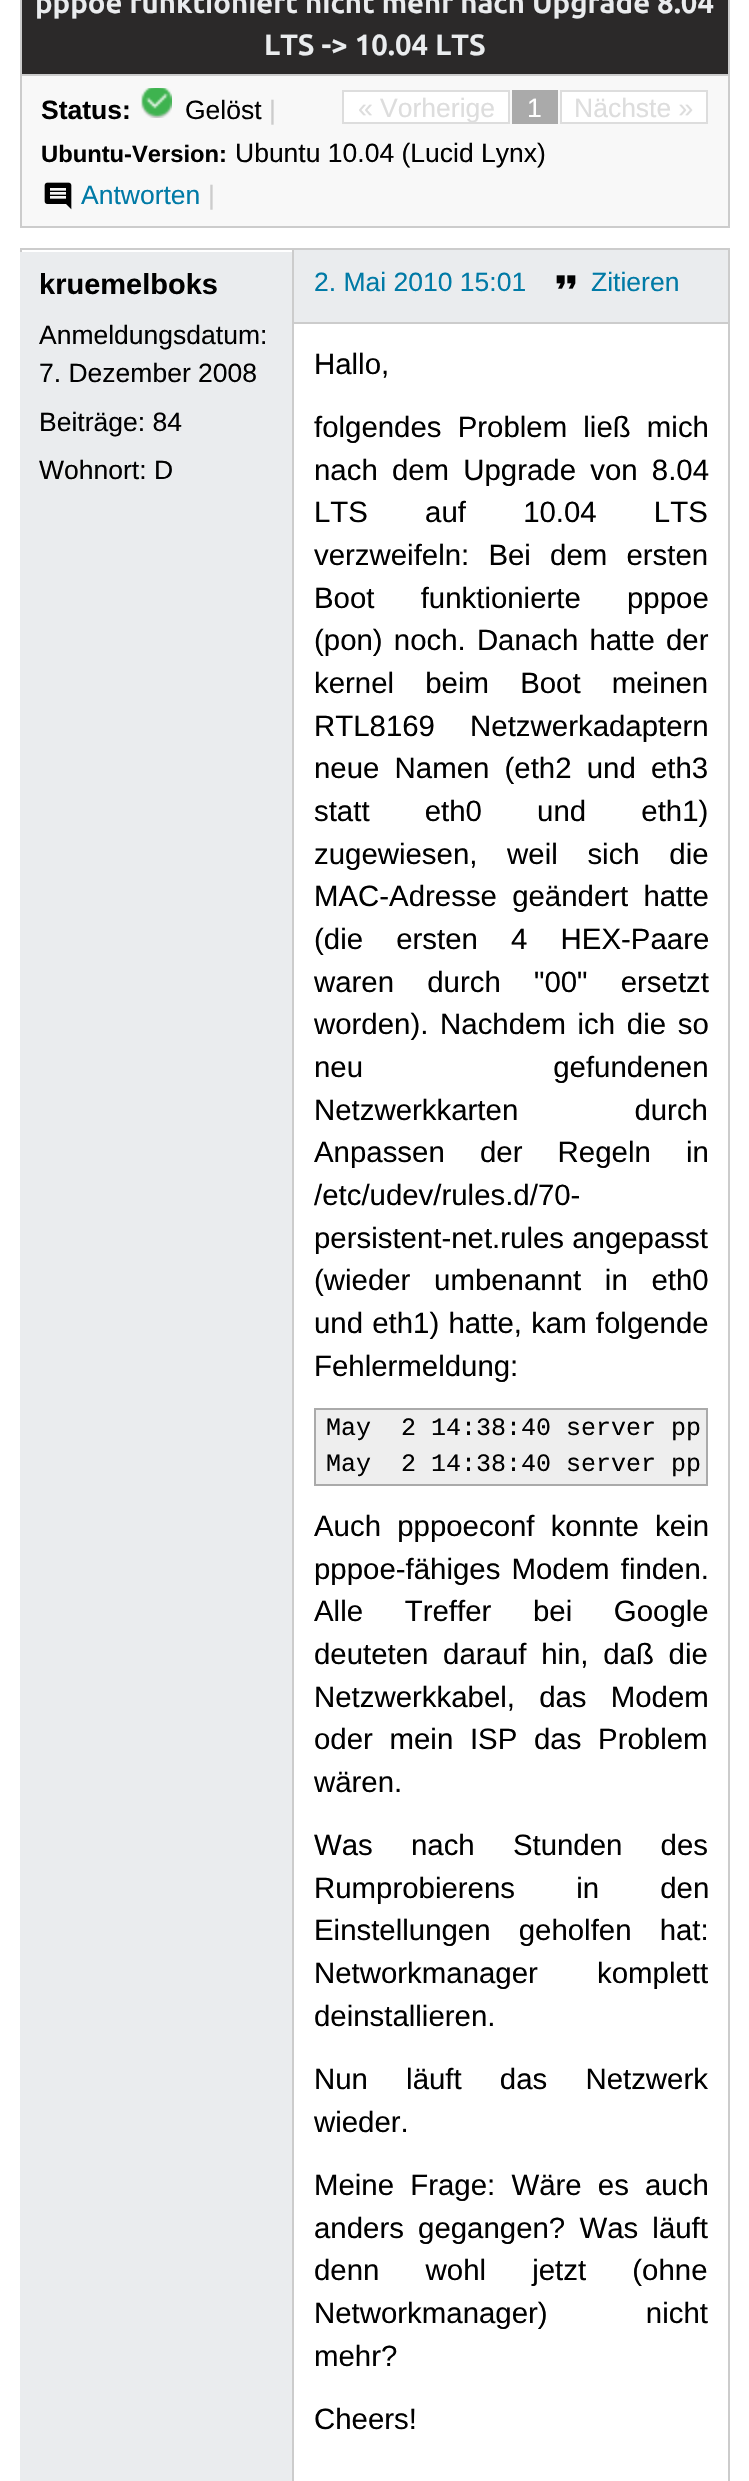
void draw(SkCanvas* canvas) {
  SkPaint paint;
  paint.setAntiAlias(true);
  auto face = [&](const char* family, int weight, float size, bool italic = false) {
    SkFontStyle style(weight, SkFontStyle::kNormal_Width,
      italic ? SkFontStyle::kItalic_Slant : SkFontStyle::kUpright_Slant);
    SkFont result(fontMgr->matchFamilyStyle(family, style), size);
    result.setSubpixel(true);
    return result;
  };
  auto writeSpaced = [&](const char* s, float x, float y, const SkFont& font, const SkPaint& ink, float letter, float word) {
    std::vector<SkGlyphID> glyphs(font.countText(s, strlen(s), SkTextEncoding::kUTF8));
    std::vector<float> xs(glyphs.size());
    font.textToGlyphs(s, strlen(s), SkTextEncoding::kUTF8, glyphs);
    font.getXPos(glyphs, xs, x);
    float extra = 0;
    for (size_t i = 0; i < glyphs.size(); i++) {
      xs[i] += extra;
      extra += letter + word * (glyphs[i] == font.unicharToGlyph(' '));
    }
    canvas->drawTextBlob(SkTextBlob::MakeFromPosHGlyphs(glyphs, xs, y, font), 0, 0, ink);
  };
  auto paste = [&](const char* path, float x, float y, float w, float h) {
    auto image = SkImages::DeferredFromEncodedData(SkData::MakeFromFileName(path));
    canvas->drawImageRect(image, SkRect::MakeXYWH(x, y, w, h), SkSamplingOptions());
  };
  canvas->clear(0xffffffff);
  paint.setColor(0xfff8f8f8);
  canvas->drawRect(SkRect::MakeXYWH(22, 76, 706, 150), paint);
  paint.setStroke(true);
  paint.setStrokeWidth(2);
  paint.setColor(0xffcccccc);
  canvas->drawRect(SkRect::MakeXYWH(21, -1, 708, 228), paint);
  paint.setStroke(false);
  paint.setColor(0xff2b2929);
  canvas->drawRect(SkRect::MakeXYWH(22, 0, 706, 74), paint);
  paint.setColor(0xffcccccc);
  canvas->drawRect(SkRect::MakeXYWH(22, 74, 706, 2), paint);
  paste("img/1.png", 141, 88, 31, 30);
  paint.setColor(0xffffffff);
  canvas->drawRect(SkRect::MakeXYWH(343, 91, 166, 32), paint);
  paint.setStroke(true);
  paint.setColor(0xffdddddd);
  canvas->drawRect(SkRect::MakeXYWH(343, 91, 166, 32), paint);
  paint.setStroke(false);
  paint.setColor(0xffaaaaaa);
  canvas->drawRect(SkRect::MakeXYWH(512, 90, 46, 34), paint);
  paint.setColor(0xffffffff);
  canvas->drawRect(SkRect::MakeXYWH(561, 91, 146, 32), paint);
  paint.setStroke(true);
  paint.setColor(0xffdddddd);
  canvas->drawRect(SkRect::MakeXYWH(561, 91, 146, 32), paint);
  paste("img/2.png", 44, 182, 28, 28);
  paint.setStroke(false);
  {
    const struct { float x, y, w, h; SkColor color; } items[] = {
      {20, 248, 710, 2, 0xffcccccc},
      {728, 248, 2, 2233, 0xffcccccc},
      {20, 248, 2, 4, 0xffcccccc},
      {292, 248, 2, 2233, 0xffcccccc},
      {20, 252, 272, 2229, 0xffeaecee},
      {294, 250, 434, 72, 0xffeaecee},
      {294, 322, 434, 2, 0xffcccccc},
    };
    for (auto [x, y, w, h, color] : items) {
      paint.setColor(color);
      canvas->drawRect(SkRect::MakeXYWH(x, y, w, h), paint);
    }
  }
  paste("img/3.png", 556, 275, 20, 14);
  paint.setColor(0xffeeeeee);
  canvas->drawRect(SkRect::MakeXYWH(315, 1409, 392, 76), paint);
  paint.setStroke(true);
  paint.setColor(0xffaaaaaa);
  canvas->drawRect(SkRect::MakeXYWH(315, 1409, 392, 76), paint);
  auto f0 = face("Ubuntu", 700, 29.4f);
  paint.setStroke(false);
  paint.setColor(0xffeaecee);
  canvas->drawString("pppoe funktioniert nicht mehr nach Upgrade 8.04", 35, 13, f0, paint);
  canvas->drawString("LTS -> 10.04 LTS", 264, 55, f0, paint);
  auto f1 = face("Liberation Sans", 700, 26.5f);
  paint.setColor(0xff000000);
  canvas->drawString("Status:", 41, 119, f1, paint);
  auto f2 = face("Liberation Sans", 400, 26.5f);
  canvas->drawString("Gelöst", 185, 119, f2, paint);
  paint.setColor(0xffcccccc);
  canvas->drawString("|", 269, 119, f2, paint);
  paint.setColor(0xffdddddd);
  canvas->drawString("« Vorherige", 358, 117, f2, paint);
  paint.setColor(0xffffffff);
  canvas->drawString("1", 527, 117, f2, paint);
  paint.setColor(0xffdddddd);
  canvas->drawString("Nächste »", 574, 117, f2, paint);
  auto f3 = face("Liberation Sans", 700, 23.75f);
  paint.setColor(0xff000000);
  canvas->drawString("Ubuntu-Version:", 41, 162, f3, paint);
  canvas->drawString("Ubuntu 10.04 (Lucid Lynx)", 235, 162, f2, paint);
  paint.setColor(0xff007aa6);
  canvas->drawString("Antworten", 81, 204, f2, paint);
  paint.setColor(0xffcccccc);
  canvas->drawString("|", 208, 204, f2, paint);
  auto f4 = face("Liberation Sans", 700, 29);
  paint.setColor(0xff000000);
  canvas->drawString("kruemelboks", 39, 294, f4, paint);
  {
    const struct { const char* s; float x, y; } items[] = {
      {"Anmeldungsdatum:", 39, 344},
      {"7. Dezember 2008", 39, 382},
      {"Beiträge: 84", 39, 431},
      {"Wohnort: D", 39, 479},
    };
    for (auto [s, x, y] : items) {
      canvas->drawString(s, x, y, f2, paint);
    }
  }
  paint.setColor(0xff007aa6);
  canvas->drawString("2. Mai 2010 15:01", 314, 291, f2, paint);
  canvas->drawString("Zitieren", 591, 291, f2, paint);
  auto f5 = face("Liberation Sans", 400, 29.4f);
  paint.setColor(0xff000000);
  canvas->drawString("Hallo,", 314, 374, f5, paint);
  writeSpaced("folgendes Problem ließ mich", 314, 437, f5, paint, 0, 8);
  writeSpaced("nach dem Upgrade von 8.04", 314, 480, f5, paint, 0, 6);
  writeSpaced("LTS auf 10.04 LTS", 314, 522, f5, paint, 0, 49);
  writeSpaced("verzweifeln: Bei dem ersten", 314, 565, f5, paint, 0, 11);
  writeSpaced("Boot funktionierte pppoe", 314, 608, f5, paint, 0, 38);
  writeSpaced("(pon) noch. Danach hatte der", 314, 650, f5, paint, 0, 3);
  writeSpaced("kernel beim Boot meinen", 314, 693, f5, paint, 0, 23);
  writeSpaced("RTL8169 Netzwerkadaptern", 314, 736, f5, paint, 0, 27);
  writeSpaced("neue Namen (eth2 und eth3", 314, 778, f5, paint, 0, 7);
  writeSpaced("statt eth0 und eth1)", 314, 821, f5, paint, 0, 47);
  writeSpaced("zugewiesen, weil sich die", 314, 864, f5, paint, 0, 21.5f);
  writeSpaced("MAC-Adresse geändert hatte", 314, 906, f5, paint, 0, 7);
  writeSpaced("(die ersten 4 HEX-Paare", 314, 949, f5, paint, 0, 25);
  writeSpaced("waren durch \"00\" ersetzt", 314, 992, f5, paint, 0, 25);
  writeSpaced("worden). Nachdem ich die so", 314, 1034, f5, paint, 0, 3.5f);
  writeSpaced("neu gefundenen", 314, 1077, f5, paint, 0, 182);
  writeSpaced("Netzwerkkarten durch", 314, 1120, f5, paint, 0, 108);
  writeSpaced("Anpassen der Regeln in", 314, 1162, f5, paint, 0, 27);
  canvas->drawString("/etc/udev/rules.d/70-", 314, 1205, f5, paint);
  canvas->drawString("persistent-net.rules angepasst", 314, 1248, f5, paint);
  writeSpaced("(wieder umbenannt in eth0", 314, 1290, f5, paint, 0, 15.5f);
  writeSpaced("und eth1) hatte, kam folgende", 314, 1333, f5, paint, 0, 1);
  canvas->drawString("Fehlermeldung:", 314, 1376, f5, paint);
  auto f6 = face("Liberation Mono", 400, 25);
  canvas->drawString("May  2 14:38:40 server pp", 326, 1435, f6, paint);
  canvas->drawString("May  2 14:38:40 server pp", 326, 1471, f6, paint);
  writeSpaced("Auch pppoeconf konnte kein", 314, 1536, f5, paint, 0, 8);
  writeSpaced("pppoe-fähiges Modem finden.", 314, 1579, f5, paint, 0, 3);
  writeSpaced("Alle Treffer bei Google", 314, 1621, f5, paint, 0, 33.5f);
  writeSpaced("deuteten darauf hin, daß die", 314, 1664, f5, paint, 0, 6.5f);
  writeSpaced("Netzwerkkabel, das Modem", 314, 1707, f5, paint, 0, 16);
  writeSpaced("oder mein ISP das Problem", 314, 1749, f5, paint, 0, 8.5f);
  canvas->drawString("wären.", 314, 1792, f5, paint);
  writeSpaced("Was nach Stunden des", 314, 1855, f5, paint, 0, 30);
  writeSpaced("Rumprobierens in den", 314, 1898, f5, paint, 0, 53);
  writeSpaced("Einstellungen geholfen hat:", 314, 1940, f5, paint, 0, 20);
  writeSpaced("Networkmanager komplett", 314, 1983, f5, paint, 0, 51);
  canvas->drawString("deinstallieren.", 314, 2026, f5, paint);
  writeSpaced("Nun läuft das Netzwerk", 314, 2089, f5, paint, 0, 30);
  canvas->drawString("wieder.", 314, 2132, f5, paint);
  writeSpaced("Meine Frage: Wäre es auch", 314, 2195, f5, paint, 0, 8);
  writeSpaced("anders gegangen? Was läuft", 314, 2238, f5, paint, 0, 6);
  writeSpaced("denn wohl jetzt (ohne", 314, 2280, f5, paint, 0, 38);
  writeSpaced("Networkmanager) nicht", 314, 2323, f5, paint, 0, 90);
  canvas->drawString("mehr?", 314, 2366, f5, paint);
  canvas->drawString("Cheers!", 314, 2429, f5, paint);
}
